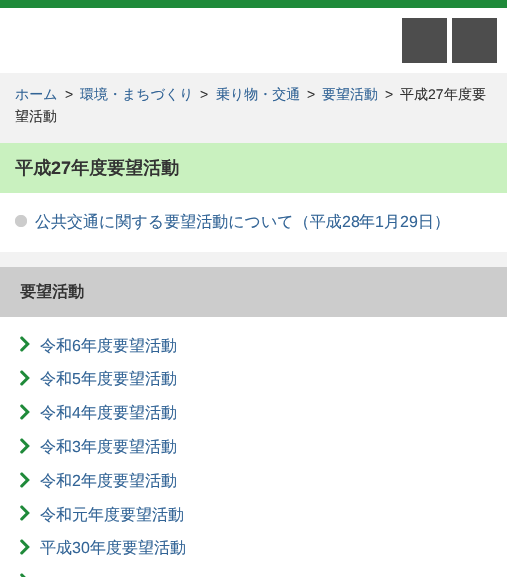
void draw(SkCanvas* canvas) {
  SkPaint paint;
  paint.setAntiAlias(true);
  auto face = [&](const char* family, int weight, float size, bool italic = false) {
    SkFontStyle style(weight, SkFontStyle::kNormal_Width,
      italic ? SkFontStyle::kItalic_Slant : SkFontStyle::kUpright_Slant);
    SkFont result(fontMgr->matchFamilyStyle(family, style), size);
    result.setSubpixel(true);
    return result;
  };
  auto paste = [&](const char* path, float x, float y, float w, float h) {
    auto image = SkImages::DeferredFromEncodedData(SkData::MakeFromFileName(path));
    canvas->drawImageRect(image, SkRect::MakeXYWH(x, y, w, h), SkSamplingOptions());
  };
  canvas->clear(0xffffffff);
  {
    const struct { float x, y, w, h; SkColor color; } items[] = {
      {0, 0, 507, 8, 0xff1f8a3a},
      {402, 18, 45, 45, 0xff4d4d4d},
      {452, 18, 45, 45, 0xff4d4d4d},
      {0, 73, 507, 194, 0xfff2f2f2},
      {0, 143, 507, 50, 0xffc9f1bf},
      {0, 193, 507, 59, 0xffffffff},
    };
    for (auto [x, y, w, h, color] : items) {
      paint.setColor(color);
      canvas->drawRect(SkRect::MakeXYWH(x, y, w, h), paint);
    }
  }
  paste("img/1.png", 15, 215, 12, 12);
  paint.setColor(0xffcccccc);
  canvas->drawRect(SkRect::MakeXYWH(0, 267, 507, 50), paint);
  paste("img/2.png", 20, 336, 10, 16);
  paste("img/2.png", 20, 370, 10, 16);
  paste("img/2.png", 20, 404, 10, 16);
  paste("img/2.png", 20, 438, 10, 16);
  paste("img/2.png", 20, 472, 10, 16);
  paste("img/2.png", 20, 505, 10, 16);
  paste("img/2.png", 20, 539, 10, 16);
  paste("img/3.png", 20, 573, 6, 4);
  auto f0 = face("WenQuanYi Zen Hei", 500, 14);
  paint.setColor(0xff326496);
  canvas->drawString("ホーム", 15, 99, f0, paint);
  auto f1 = face("Liberation Sans", 400, 14);
  paint.setColor(0xff333333);
  canvas->drawString(">", 65, 99, f1, paint);
  paint.setColor(0xff326496);
  canvas->drawString("環境・まちづくり", 80, 99, f0, paint);
  paint.setColor(0xff333333);
  canvas->drawString(">", 200, 99, f1, paint);
  paint.setColor(0xff326496);
  canvas->drawString("乗り物・交通", 216, 99, f0, paint);
  paint.setColor(0xff333333);
  canvas->drawString(">", 307, 99, f1, paint);
  paint.setColor(0xff326496);
  canvas->drawString("要望活動", 322, 99, f0, paint);
  paint.setColor(0xff333333);
  canvas->drawString(">", 385, 99, f1, paint);
  canvas->drawString("平成", 400, 99, f0, paint);
  canvas->drawString("27", 428, 99, f1, paint);
  canvas->drawString("年度要", 444, 99, f0, paint);
  canvas->drawString("望活動", 15, 121, f0, paint);
  auto f2 = face("WenQuanYi Zen Hei", 700, 18);
  canvas->drawString("平成", 15, 174, f2, paint);
  auto f3 = face("Liberation Sans", 700, 18);
  canvas->drawString("27", 51, 174, f3, paint);
  canvas->drawString("年度要望活動", 71, 174, f2, paint);
  auto f4 = face("WenQuanYi Zen Hei", 500, 16);
  paint.setColor(0xff326496);
  canvas->drawString("公共交通に関する要望活動について（平成", 35, 227, f4, paint);
  auto f5 = face("Liberation Sans", 400, 16);
  canvas->drawString("28", 342, 227, f5, paint);
  canvas->drawString("年", 359, 227, f4, paint);
  canvas->drawString("1", 375, 227, f5, paint);
  canvas->drawString("月", 384, 227, f4, paint);
  canvas->drawString("29", 400, 227, f5, paint);
  canvas->drawString("日）", 418, 227, f4, paint);
  auto f6 = face("WenQuanYi Zen Hei", 700, 16);
  paint.setColor(0xff333333);
  canvas->drawString("要望活動", 20, 297, f6, paint);
  paint.setColor(0xff326496);
  canvas->drawString("令和", 40, 351, f4, paint);
  canvas->drawString("6", 72, 351, f5, paint);
  canvas->drawString("年度要望活動", 81, 351, f4, paint);
  canvas->drawString("令和", 40, 384, f4, paint);
  canvas->drawString("5", 72, 384, f5, paint);
  canvas->drawString("年度要望活動", 81, 384, f4, paint);
  canvas->drawString("令和", 40, 418, f4, paint);
  canvas->drawString("4", 72, 418, f5, paint);
  canvas->drawString("年度要望活動", 81, 418, f4, paint);
  canvas->drawString("令和", 40, 452, f4, paint);
  canvas->drawString("3", 72, 452, f5, paint);
  canvas->drawString("年度要望活動", 81, 452, f4, paint);
  canvas->drawString("令和", 40, 486, f4, paint);
  canvas->drawString("2", 72, 486, f5, paint);
  {
    const struct { const char* s; float x, y; } items[] = {
      {"年度要望活動", 81, 486},
      {"令和元年度要望活動", 40, 520},
      {"平成", 40, 553},
    };
    for (auto [s, x, y] : items) {
      canvas->drawString(s, x, y, f4, paint);
    }
  }
  canvas->drawString("30", 72, 553, f5, paint);
  canvas->drawString("年度要望活動", 90, 553, f4, paint);
}
